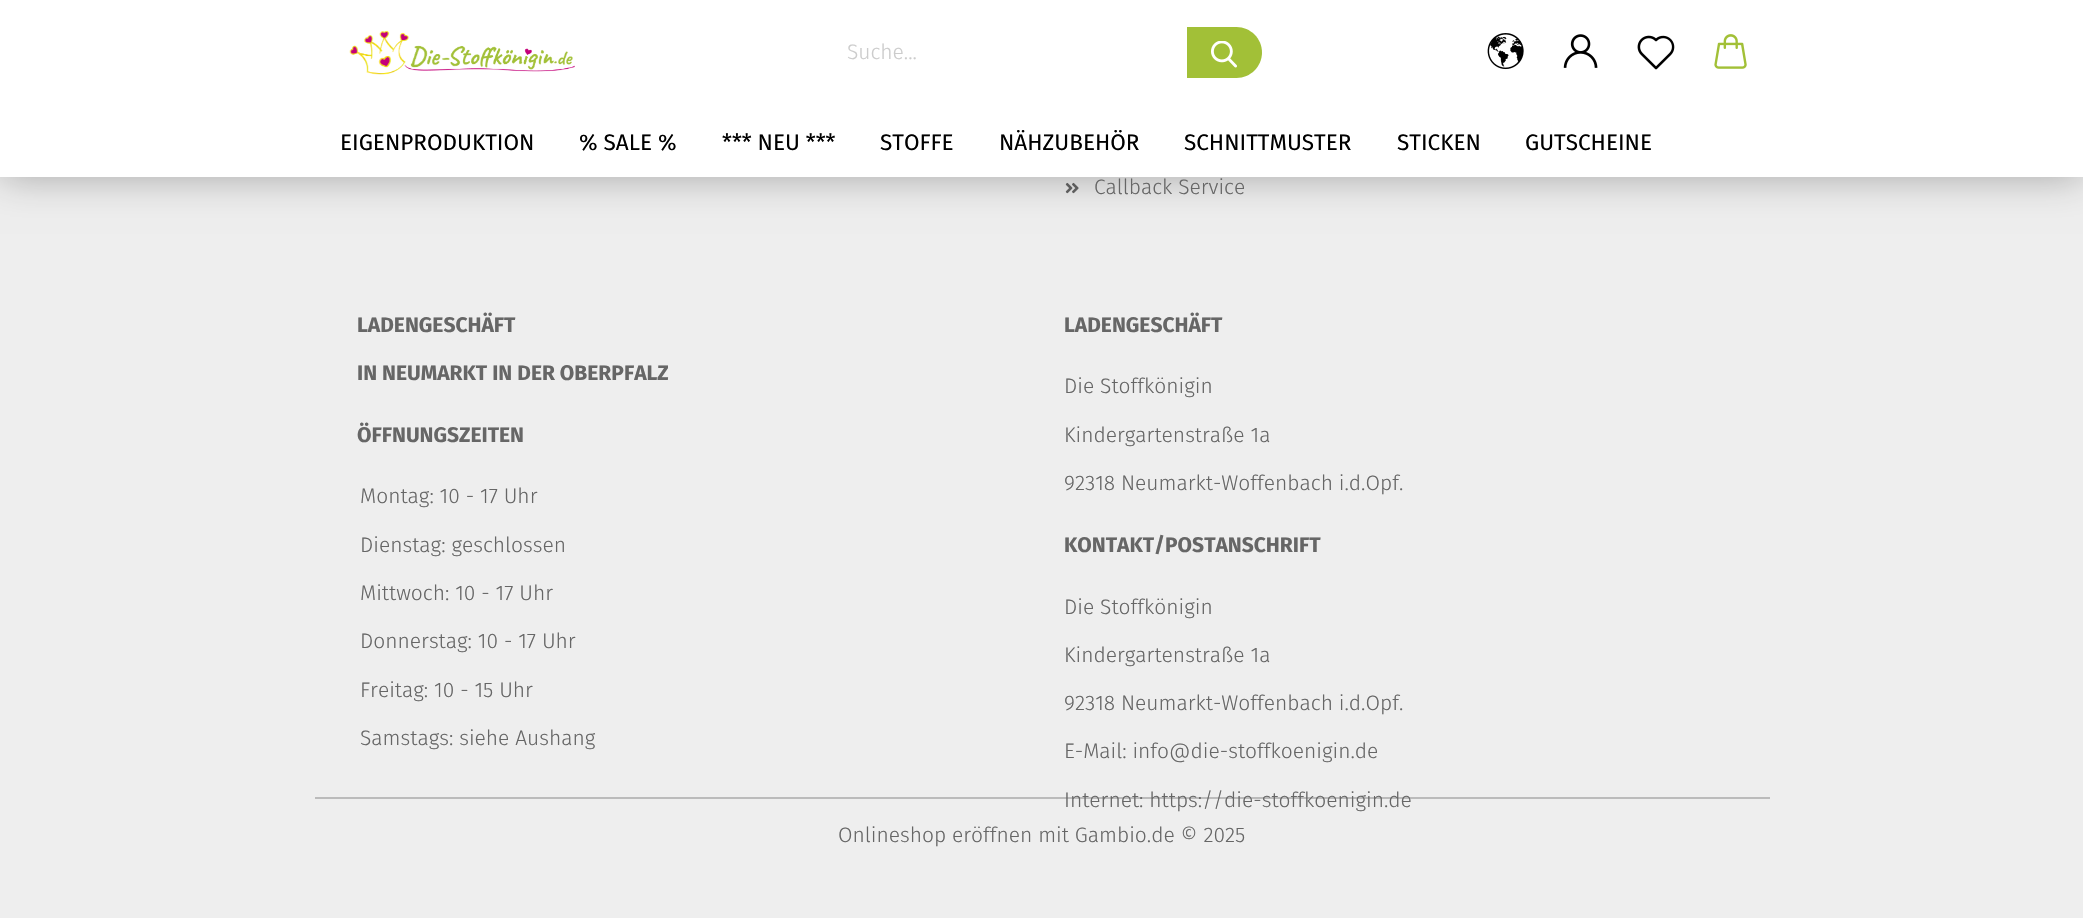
void draw(SkCanvas* canvas) {
  SkPaint paint;
  paint.setAntiAlias(true);
  auto face = [&](const char* family, int weight, float size, bool italic = false) {
    SkFontStyle style(weight, SkFontStyle::kNormal_Width,
      italic ? SkFontStyle::kItalic_Slant : SkFontStyle::kUpright_Slant);
    SkFont result(fontMgr->matchFamilyStyle(family, style), size);
    result.setSubpixel(true);
    return result;
  };
  auto paste = [&](const char* path, float x, float y, float w, float h) {
    auto image = SkImages::DeferredFromEncodedData(SkData::MakeFromFileName(path));
    canvas->drawImageRect(image, SkRect::MakeXYWH(x, y, w, h), SkSamplingOptions());
  };
  auto shape = [&](const char* data, bool evenOdd = false) {
    SkPath result = *SkParsePath::FromSVGString(data);
    if (evenOdd) result.setFillType(SkPathFillType::kEvenOdd);
    return result;
  };
  canvas->clear(0xffeeeeee);
  paste("img/7.png", 1065, 182, 14, 12);
  paint.setColor(0x4d000000);
  paint.setMaskFilter(SkMaskFilter::MakeBlur(kNormal_SkBlurStyle, 19));
  canvas->drawRect(SkRect::MakeXYWH(0, 0, 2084, 177), paint);
  paint.setMaskFilter(nullptr);
  paint.setColor(0xffffffff);
  canvas->drawRect(SkRect::MakeXYWH(0, 0, 2083, 177), paint);
  paste("img/1.png", 349, 30, 226, 45);
  paint.setColor(0xffa2c037);
  canvas->drawPath(shape("M1187 27H1236.5C1250.5 27 1262 38.5 1262 52.5C1262 66.5 1250.5 78 1236.5 78H1187Z"), paint);
  paste("img/2.png", 1211, 41, 26, 27);
  paste("img/3.png", 1487, 33, 37, 37);
  paste("img/4.png", 1563, 34, 35, 34);
  paste("img/5.png", 1637, 35, 38, 35);
  paste("img/6.png", 1714, 34, 33, 35);
  paint.setColor(0xffbbbbbb);
  canvas->drawRect(SkRect::MakeXYWH(315, 797, 1455, 2), paint);
  auto f0 = face("Fira Sans", 300, 21);
  paint.setColor(0xffcccccc);
  canvas->drawString("Suche...", 847, 59, f0, paint);
  auto f1 = face("Fira Sans", 400, 22.5f);
  paint.setColor(0xff000000);
  {
    const struct { const char* s; float x, y; } items[] = {
      {"EIGENPRODUKTION", 340, 150},
      {"% SALE %", 579, 150},
      {"*** NEU ***", 722, 150},
      {"STOFFE", 880, 150},
      {"NÄHZUBEHÖR", 999, 150},
      {"SCHNITTMUSTER", 1184, 150},
      {"STICKEN", 1397, 150},
      {"GUTSCHEINE", 1525, 150},
    };
    for (auto [s, x, y] : items) {
      canvas->drawString(s, x, y, f1, paint);
    }
  }
  paint.setColor(0xff666666);
  canvas->drawString("Callback Service", 1094, 194, f0, paint);
  auto f2 = face("Fira Sans", 700, 21);
  {
    const struct { const char* s; float x, y; } items[] = {
      {"LADENGESCHÄFT", 357, 332},
      {"IN NEUMARKT IN DER OBERPFALZ", 357, 380},
      {"ÖFFNUNGSZEITEN", 357, 442},
    };
    for (auto [s, x, y] : items) {
      canvas->drawString(s, x, y, f2, paint);
    }
  }
  {
    const struct { const char* s; float x, y; } items[] = {
      {"Montag: 10 - 17 Uhr", 360, 503},
      {"Dienstag: geschlossen", 360, 552},
      {"Mittwoch: 10 - 17 Uhr", 360, 600},
      {"Donnerstag: 10 - 17 Uhr", 360, 648},
      {"Freitag: 10 - 15 Uhr", 360, 697},
      {"Samstags: siehe Aushang", 360, 745},
    };
    for (auto [s, x, y] : items) {
      canvas->drawString(s, x, y, f0, paint);
    }
  }
  canvas->drawString("LADENGESCHÄFT", 1064, 332, f2, paint);
  {
    const struct { const char* s; float x, y; } items[] = {
      {"Die Stoffkönigin", 1064, 393},
      {"Kindergartenstraße 1a", 1064, 442},
      {"92318 Neumarkt-Woffenbach i.d.Opf.", 1064, 490},
    };
    for (auto [s, x, y] : items) {
      canvas->drawString(s, x, y, f0, paint);
    }
  }
  canvas->drawString("KONTAKT/POSTANSCHRIFT", 1064, 552, f2, paint);
  {
    const struct { const char* s; float x, y; } items[] = {
      {"Die Stoffkönigin", 1064, 614},
      {"Kindergartenstraße 1a", 1064, 662},
      {"92318 Neumarkt-Woffenbach i.d.Opf.", 1064, 710},
      {"E-Mail: info@die-stoffkoenigin.de", 1064, 758},
      {"Internet: https://die-stoffkoenigin.de", 1064, 807},
      {"Onlineshop eröffnen mit Gambio.de © 2025", 838, 842},
    };
    for (auto [s, x, y] : items) {
      canvas->drawString(s, x, y, f0, paint);
    }
  }
}
